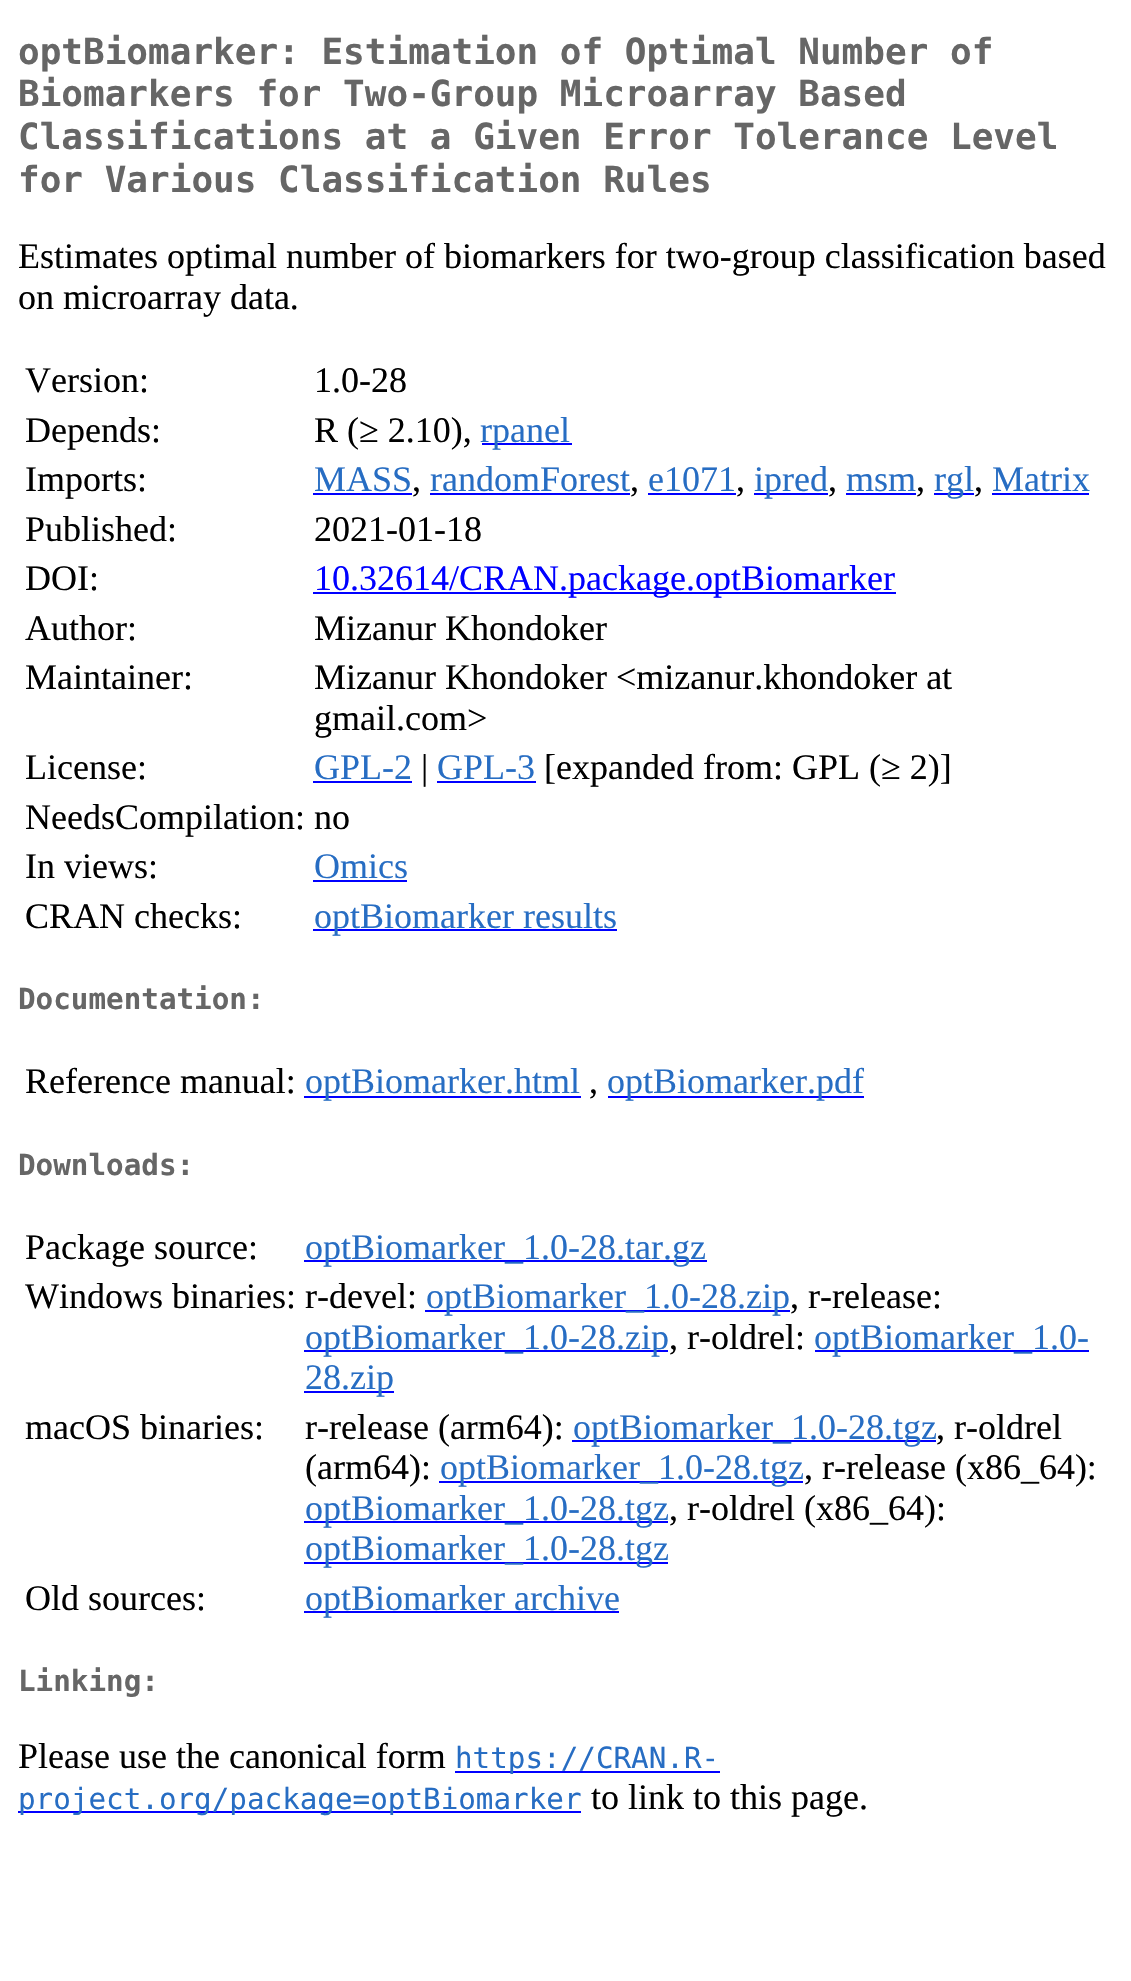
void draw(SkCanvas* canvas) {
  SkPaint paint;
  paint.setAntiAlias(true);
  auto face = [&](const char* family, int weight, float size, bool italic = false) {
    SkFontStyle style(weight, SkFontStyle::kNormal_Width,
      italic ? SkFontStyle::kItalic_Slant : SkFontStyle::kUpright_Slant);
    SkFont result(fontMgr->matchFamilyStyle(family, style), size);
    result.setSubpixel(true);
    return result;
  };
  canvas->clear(0xffffffff);
  {
    const struct { float x, y, w, h; SkColor color; } items[] = {
      {482, 443, 90, 2, 0xff0000ff},
      {313, 493, 99, 2, 0xff0000ff},
      {430, 493, 200, 2, 0xff0000ff},
      {648, 493, 88, 2, 0xff0000ff},
      {754, 493, 74, 2, 0xff0000ff},
      {846, 493, 70, 2, 0xff0000ff},
      {934, 493, 40, 2, 0xff0000ff},
      {992, 493, 97, 2, 0xff0000ff},
      {313, 592, 583, 2, 0xff0000ff},
      {313, 781, 99, 2, 0xff0000ff},
      {437, 781, 99, 2, 0xff0000ff},
      {313, 880, 94, 2, 0xff0000ff},
      {313, 929, 304, 2, 0xff0000ff},
      {304, 1096, 277, 2, 0xff0000ff},
      {608, 1096, 256, 2, 0xff0000ff},
      {304, 1260, 403, 2, 0xff0000ff},
      {425, 1310, 365, 2, 0xff0000ff},
      {304, 1350, 364, 2, 0xff0000ff},
      {815, 1350, 274, 2, 0xff0000ff},
      {304, 1391, 90, 2, 0xff0000ff},
      {572, 1440, 364, 2, 0xff0000ff},
      {439, 1481, 364, 2, 0xff0000ff},
      {304, 1521, 364, 2, 0xff0000ff},
      {304, 1562, 364, 2, 0xff0000ff},
      {304, 1611, 315, 2, 0xff0000ff},
      {455, 1771, 265, 2, 0xff0000ff},
      {18, 1811, 563, 2, 0xff0000ff},
    };
    for (auto [x, y, w, h, color] : items) {
      paint.setColor(color);
      canvas->drawRect(SkRect::MakeXYWH(x, y, w, h), paint);
    }
  }
  auto f0 = face("DejaVu Sans Mono", 700, 36);
  paint.setColor(0xff666666);
  {
    const struct { const char* s; float x, y; } items[] = {
      {"optBiomarker: Estimation of Optimal Number of", 18, 64},
      {"Biomarkers for Two-Group Microarray Based", 18, 106},
      {"Classifications at a Given Error Tolerance Level", 18, 149},
      {"for Various Classification Rules", 18, 192},
    };
    for (auto [s, x, y] : items) {
      canvas->drawString(s, x, y, f0, paint);
    }
  }
  auto f1 = face("Liberation Serif", 400, 36);
  paint.setColor(0xff000000);
  {
    const struct { const char* s; float x, y; } items[] = {
      {"Estimates optimal number of biomarkers for two-group classification based", 18, 268},
      {"on microarray data.", 18, 309},
      {"Version:", 25, 392},
      {"1.0-28", 314, 392},
      {"Depends:", 25, 442},
      {"R (≥ 2.10),", 314, 442},
    };
    for (auto [s, x, y] : items) {
      canvas->drawString(s, x, y, f1, paint);
    }
  }
  paint.setColor(0xff276dc3);
  canvas->drawString("rpanel", 480, 442, f1, paint);
  paint.setColor(0xff000000);
  canvas->drawString("Imports:", 25, 491, f1, paint);
  paint.setColor(0xff276dc3);
  canvas->drawString("MASS", 314, 491, f1, paint);
  paint.setColor(0xff000000);
  canvas->drawString(",", 412, 491, f1, paint);
  paint.setColor(0xff276dc3);
  canvas->drawString("randomForest", 430, 491, f1, paint);
  paint.setColor(0xff000000);
  canvas->drawString(",", 630, 491, f1, paint);
  paint.setColor(0xff276dc3);
  canvas->drawString("e1071", 648, 491, f1, paint);
  paint.setColor(0xff000000);
  canvas->drawString(",", 736, 491, f1, paint);
  paint.setColor(0xff276dc3);
  canvas->drawString("ipred", 754, 491, f1, paint);
  paint.setColor(0xff000000);
  canvas->drawString(",", 828, 491, f1, paint);
  paint.setColor(0xff276dc3);
  canvas->drawString("msm", 846, 491, f1, paint);
  paint.setColor(0xff000000);
  canvas->drawString(",", 916, 491, f1, paint);
  paint.setColor(0xff276dc3);
  canvas->drawString("rgl", 934, 491, f1, paint);
  paint.setColor(0xff000000);
  canvas->drawString(",", 974, 491, f1, paint);
  paint.setColor(0xff276dc3);
  canvas->drawString("Matrix", 992, 491, f1, paint);
  paint.setColor(0xff000000);
  {
    const struct { const char* s; float x, y; } items[] = {
      {"Published:", 25, 541},
      {"2021-01-18", 314, 541},
      {"DOI:", 25, 590},
    };
    for (auto [s, x, y] : items) {
      canvas->drawString(s, x, y, f1, paint);
    }
  }
  paint.setColor(0xff0000ff);
  canvas->drawString("10.32614/CRAN.package.optBiomarker", 314, 590, f1, paint);
  paint.setColor(0xff000000);
  {
    const struct { const char* s; float x, y; } items[] = {
      {"Author:", 25, 640},
      {"Mizanur Khondoker", 314, 640},
      {"Maintainer:", 25, 689},
      {"Mizanur Khondoker <mizanur.khondoker at", 314, 689},
      {"gmail.com>", 314, 730},
      {"License:", 25, 779},
    };
    for (auto [s, x, y] : items) {
      canvas->drawString(s, x, y, f1, paint);
    }
  }
  paint.setColor(0xff276dc3);
  canvas->drawString("GPL-2", 314, 779, f1, paint);
  paint.setColor(0xff000000);
  canvas->drawString("|", 421, 779, f1, paint);
  paint.setColor(0xff276dc3);
  canvas->drawString("GPL-3", 437, 779, f1, paint);
  paint.setColor(0xff000000);
  {
    const struct { const char* s; float x, y; } items[] = {
      {"[expanded from: GPL (≥ 2)]", 544, 779},
      {"NeedsCompilation: no", 25, 829},
      {"In views:", 25, 878},
    };
    for (auto [s, x, y] : items) {
      canvas->drawString(s, x, y, f1, paint);
    }
  }
  paint.setColor(0xff276dc3);
  canvas->drawString("Omics", 314, 878, f1, paint);
  paint.setColor(0xff000000);
  canvas->drawString("CRAN checks:", 25, 928, f1, paint);
  paint.setColor(0xff276dc3);
  canvas->drawString("optBiomarker results", 314, 928, f1, paint);
  auto f2 = face("DejaVu Sans Mono", 700, 29.25f);
  paint.setColor(0xff666666);
  canvas->drawString("Documentation:", 18, 1009, f2, paint);
  paint.setColor(0xff000000);
  canvas->drawString("Reference manual:", 25, 1093, f1, paint);
  paint.setColor(0xff276dc3);
  canvas->drawString("optBiomarker.html", 305, 1093, f1, paint);
  paint.setColor(0xff000000);
  canvas->drawString(",", 589, 1093, f1, paint);
  paint.setColor(0xff276dc3);
  canvas->drawString("optBiomarker.pdf", 607, 1093, f1, paint);
  paint.setColor(0xff666666);
  canvas->drawString("Downloads:", 18, 1175, f2, paint);
  paint.setColor(0xff000000);
  canvas->drawString("Package source:", 25, 1259, f1, paint);
  paint.setColor(0xff276dc3);
  canvas->drawString("optBiomarker_1.0-28.tar.gz", 305, 1259, f1, paint);
  paint.setColor(0xff000000);
  canvas->drawString("Windows binaries: r-devel:", 25, 1308, f1, paint);
  paint.setColor(0xff276dc3);
  canvas->drawString("optBiomarker_1.0-28.zip", 426, 1308, f1, paint);
  paint.setColor(0xff000000);
  canvas->drawString(", r-release:", 790, 1308, f1, paint);
  paint.setColor(0xff276dc3);
  canvas->drawString("optBiomarker_1.0-28.zip", 305, 1349, f1, paint);
  paint.setColor(0xff000000);
  canvas->drawString(", r-oldrel:", 669, 1349, f1, paint);
  paint.setColor(0xff276dc3);
  canvas->drawString("optBiomarker_1.0-", 814, 1349, f1, paint);
  canvas->drawString("28.zip", 305, 1389, f1, paint);
  paint.setColor(0xff000000);
  canvas->drawString("macOS binaries:", 25, 1439, f1, paint);
  canvas->drawString("r-release (arm64):", 305, 1439, f1, paint);
  paint.setColor(0xff276dc3);
  canvas->drawString("optBiomarker_1.0-28.tgz", 573, 1439, f1, paint);
  paint.setColor(0xff000000);
  canvas->drawString(", r-oldrel", 936, 1439, f1, paint);
  canvas->drawString("(arm64):", 305, 1479, f1, paint);
  paint.setColor(0xff276dc3);
  canvas->drawString("optBiomarker_1.0-28.tgz", 440, 1479, f1, paint);
  paint.setColor(0xff000000);
  canvas->drawString(", r-release (x86_64):", 804, 1479, f1, paint);
  paint.setColor(0xff276dc3);
  canvas->drawString("optBiomarker_1.0-28.tgz", 305, 1520, f1, paint);
  paint.setColor(0xff000000);
  canvas->drawString(", r-oldrel (x86_64):", 669, 1520, f1, paint);
  paint.setColor(0xff276dc3);
  canvas->drawString("optBiomarker_1.0-28.tgz", 305, 1560, f1, paint);
  paint.setColor(0xff000000);
  canvas->drawString("Old sources:", 25, 1610, f1, paint);
  paint.setColor(0xff276dc3);
  canvas->drawString("optBiomarker archive", 305, 1610, f1, paint);
  paint.setColor(0xff666666);
  canvas->drawString("Linking:", 18, 1691, f2, paint);
  paint.setColor(0xff000000);
  canvas->drawString("Please use the canonical form", 18, 1768, f1, paint);
  auto f3 = face("DejaVu Sans Mono", 400, 29.25f);
  paint.setColor(0xff276dc3);
  canvas->drawString("https://CRAN.R-", 455, 1768, f3, paint);
  canvas->drawString("project.org/package=optBiomarker", 18, 1809, f3, paint);
  paint.setColor(0xff000000);
  canvas->drawString("to link to this page.", 591, 1809, f1, paint);
}
